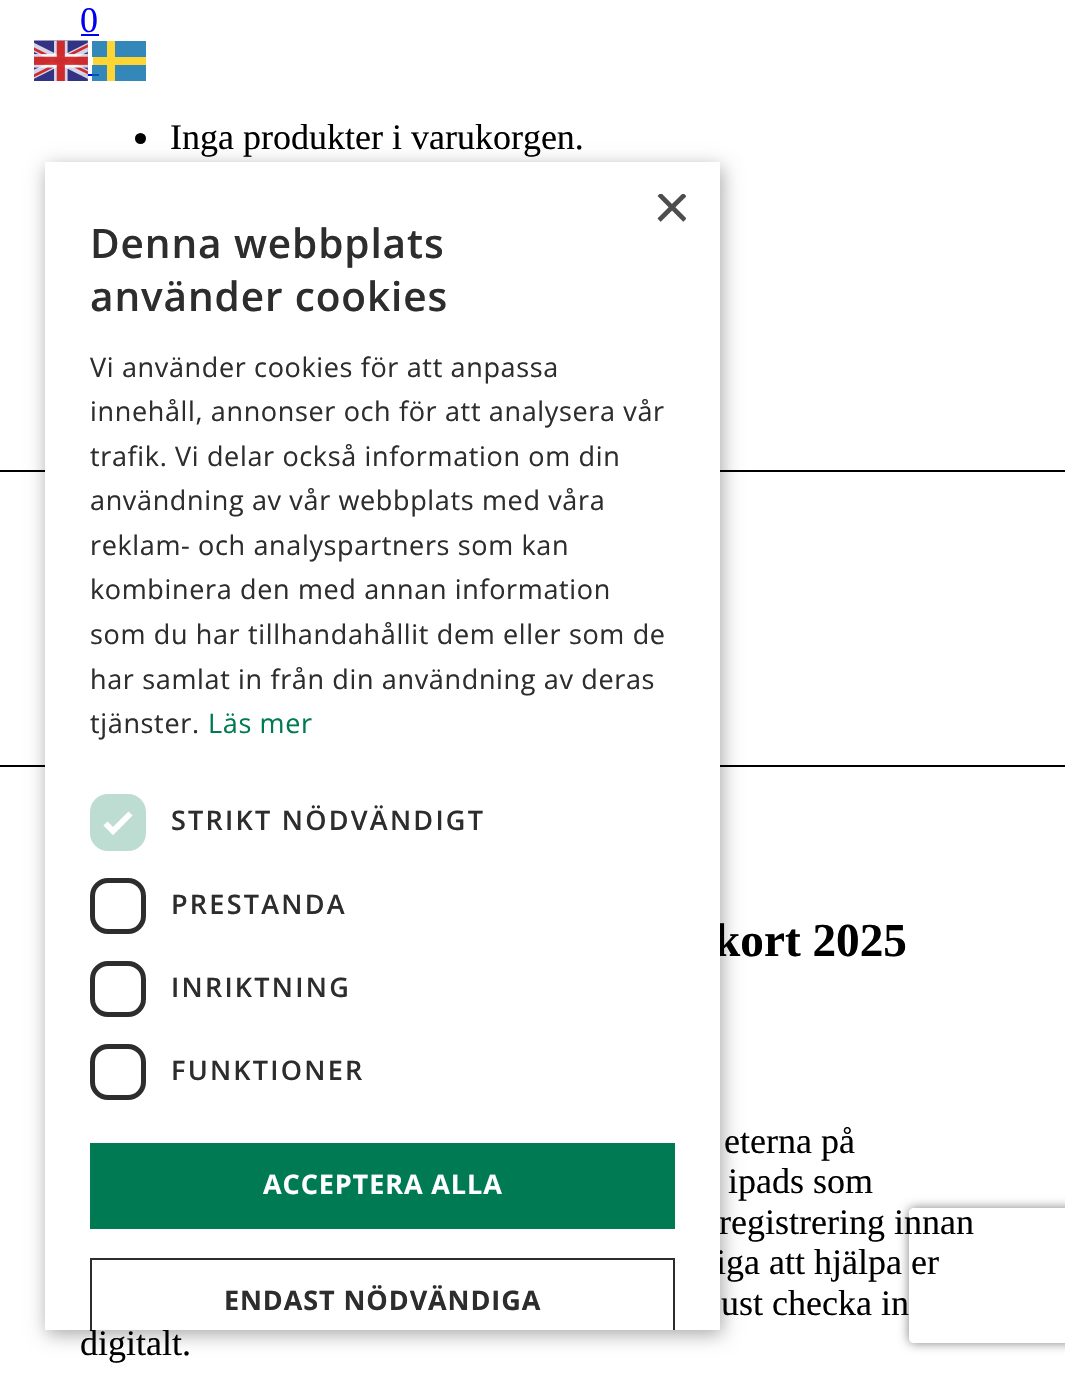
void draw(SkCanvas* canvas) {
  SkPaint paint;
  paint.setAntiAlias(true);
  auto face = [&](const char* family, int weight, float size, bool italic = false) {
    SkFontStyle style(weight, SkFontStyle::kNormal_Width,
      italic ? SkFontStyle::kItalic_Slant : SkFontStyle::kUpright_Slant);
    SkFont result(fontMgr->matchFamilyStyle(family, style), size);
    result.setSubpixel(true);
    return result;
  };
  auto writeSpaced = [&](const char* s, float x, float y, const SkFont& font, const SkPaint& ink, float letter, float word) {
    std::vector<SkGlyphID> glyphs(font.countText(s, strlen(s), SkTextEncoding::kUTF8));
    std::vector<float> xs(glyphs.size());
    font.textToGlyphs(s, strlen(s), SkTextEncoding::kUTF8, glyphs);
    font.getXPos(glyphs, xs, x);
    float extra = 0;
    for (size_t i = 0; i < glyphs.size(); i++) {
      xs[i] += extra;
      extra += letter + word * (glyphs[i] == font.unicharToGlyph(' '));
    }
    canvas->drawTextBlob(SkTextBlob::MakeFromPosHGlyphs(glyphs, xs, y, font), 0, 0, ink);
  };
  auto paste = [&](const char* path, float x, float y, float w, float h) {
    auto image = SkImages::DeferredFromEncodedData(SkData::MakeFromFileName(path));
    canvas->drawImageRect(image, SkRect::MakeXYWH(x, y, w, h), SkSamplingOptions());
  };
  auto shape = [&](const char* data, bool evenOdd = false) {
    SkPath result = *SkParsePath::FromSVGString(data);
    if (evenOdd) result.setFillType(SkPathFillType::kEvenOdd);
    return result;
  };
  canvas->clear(0xffffffff);
  paint.setColor(0xff0000ee);
  canvas->drawRect(SkRect::MakeXYWH(81, 34, 18, 2), paint);
  canvas->drawRect(SkRect::MakeXYWH(81, 74, 18, 2), paint);
  paint.setColor(0xff000000);
  canvas->drawCircle(140.5f, 138.5f, 5.5f, paint);
  canvas->drawRect(SkRect::MakeXYWH(0, 470, 1065, 2), paint);
  canvas->drawRect(SkRect::MakeXYWH(0, 765, 1065, 2), paint);
  paste("img/1.png", 34, 40, 54, 41);
  paint.setColor(0xcc006aa7);
  canvas->drawPath(shape("M92 57V41H107V57ZM92 81H107V65H92Z", true), paint);
  paint.setColor(0xfffed633);
  canvas->drawRect(SkRect::MakeXYWH(107, 41, 8, 40), paint);
  canvas->drawRect(SkRect::MakeXYWH(115, 57, 31, 8), paint);
  paint.setColor(0xff3388b9);
  canvas->drawPath(shape("M115 65V81H146V65ZM115 41H146V57H115Z", true), paint);
  paint.setColor(0xccfecc00);
  canvas->drawRect(SkRect::MakeXYWH(93, 57, 14, 8), paint);
  paint.setColor(0x59000000);
  paint.setMaskFilter(SkMaskFilter::MakeBlur(kNormal_SkBlurStyle, 9));
  canvas->drawRect(SkRect::MakeXYWH(47, 167, 675, 1167), paint);
  paint.setMaskFilter(nullptr);
  canvas->save();
  canvas->clipPath(shape("M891 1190H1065V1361H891ZM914 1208H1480C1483 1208 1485 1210 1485 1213V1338C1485 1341 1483 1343 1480 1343H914C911 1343 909 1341 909 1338V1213C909 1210 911 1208 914 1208Z", true), true);
  paint.setColor(0xff808080);
  paint.setMaskFilter(SkMaskFilter::MakeBlur(kNormal_SkBlurStyle, 5.5f));
  canvas->drawRoundRect(SkRect::MakeXYWH(909, 1208, 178, 135), 5, 5, paint);
  paint.setMaskFilter(nullptr);
  canvas->restore();
  auto f0 = face("Liberation Serif", 400, 36);
  paint.setColor(0xff0000ee);
  canvas->drawString("0", 80, 32, f0, paint);
  paint.setColor(0xff000000);
  canvas->drawString("Inga produkter i varukorgen.", 170, 149, f0, paint);
  auto f1 = face("Liberation Serif", 700, 47.25f);
  canvas->drawString("kort 2025", 714, 956, f1, paint);
  {
    const struct { const char* s; float x, y; } items[] = {
      {"eterna på", 724, 1153},
      {"ipads som", 728, 1193},
      {"registrering innan", 719, 1234},
      {"iga att hjälpa er", 716, 1274},
      {"ust checka in", 721, 1315},
      {"digitalt.", 80, 1355},
    };
    for (auto [s, x, y] : items) {
      canvas->drawString(s, x, y, f0, paint);
    }
  }
  paint.setColor(0xffffffff);
  canvas->drawRect(SkRect::MakeXYWH(45, 162, 675, 1168), paint);
  canvas->save();
  canvas->clipRect(SkRect::MakeXYWH(653, 194, 33, 33));
  auto f2 = face("Liberation Sans", 400, 65);
  paint.setColor(0xff4d4d4d);
  canvas->drawString("×", 653, 229, f2, paint);
  canvas->restore();
  auto f3 = face("Open Sans", 600, 40.5f);
  paint.setColor(0xff2d2d2d);
  writeSpaced("Denna webbplats", 90, 258, f3, paint, 0.9f, 0);
  writeSpaced("använder cookies", 90, 311, f3, paint, 0.9f, 0);
  auto f4 = face("Open Sans", 400, 27);
  {
    const struct { const char* s; float x, y; } items[] = {
      {"Vi använder cookies för att anpassa", 90, 377},
      {"innehåll, annonser och för att analysera vår", 90, 421},
      {"trafik. Vi delar också information om din", 90, 466},
      {"användning av vår webbplats med våra", 90, 510},
      {"reklam- och analyspartners som kan", 90, 555},
      {"kombinera den med annan information", 90, 599},
      {"som du har tillhandahållit dem eller som de", 90, 644},
      {"har samlat in från din användning av deras", 90, 689},
      {"tjänster.", 90, 733},
    };
    for (auto [s, x, y] : items) {
      writeSpaced(s, x, y, f4, paint, 0.65f, 0);
    }
  }
  paint.setColor(0xff007a53);
  writeSpaced("Läs mer", 208, 733, f4, paint, 0.65f, 0);
  paint.setColor(0xffbddcd2);
  canvas->drawRoundRect(SkRect::MakeXYWH(90, 794, 56, 57), 18, 18, paint);
  paint.setStroke(true);
  paint.setStrokeWidth(5.9f);
  paint.setColor(0xffffffff);
  canvas->drawPath(shape("M105.5 823.5L113 831L130.5 813.5"), paint);
  auto f5 = face("Open Sans", 600, 27);
  paint.setStroke(false);
  paint.setColor(0xff2d2d2d);
  writeSpaced("STRIKT NÖDVÄNDIGT", 171, 830, f5, paint, 2.25f, 0);
  paint.setStroke(true);
  paint.setStrokeWidth(5);
  canvas->drawRoundRect(SkRect::MakeXYWH(92.5f, 880.5f, 51, 51), 15.5f, 15.5f, paint);
  paint.setStroke(false);
  writeSpaced("PRESTANDA", 171, 914, f5, paint, 2.25f, 0);
  paint.setStroke(true);
  canvas->drawRoundRect(SkRect::MakeXYWH(92.5f, 963.5f, 51, 51), 15.5f, 15.5f, paint);
  paint.setStroke(false);
  writeSpaced("INRIKTNING", 171, 997, f5, paint, 2.25f, 0);
  paint.setStroke(true);
  canvas->drawRoundRect(SkRect::MakeXYWH(92.5f, 1046.5f, 51, 51), 15.5f, 15.5f, paint);
  paint.setStroke(false);
  writeSpaced("FUNKTIONER", 171, 1080, f5, paint, 2.25f, 0);
  paint.setColor(0xff007a53);
  canvas->drawRect(SkRect::MakeXYWH(90, 1143, 585, 86), paint);
  auto f6 = face("Open Sans", 700, 27);
  paint.setColor(0xffffffff);
  writeSpaced("ACCEPTERA ALLA", 263, 1194, f6, paint, 0.9f, 0);
  canvas->save();
  canvas->clipRect(SkRect::MakeXYWH(45, 162, 675, 1168));
  paint.setStroke(true);
  paint.setStrokeWidth(2);
  paint.setColor(0xff2d2d2d);
  canvas->drawRect(SkRect::MakeXYWH(91, 1259, 583, 83), paint);
  canvas->restore();
  paint.setStroke(false);
  writeSpaced("ENDAST NÖDVÄNDIGA", 224, 1310, f6, paint, 0.9f, 0);
}
